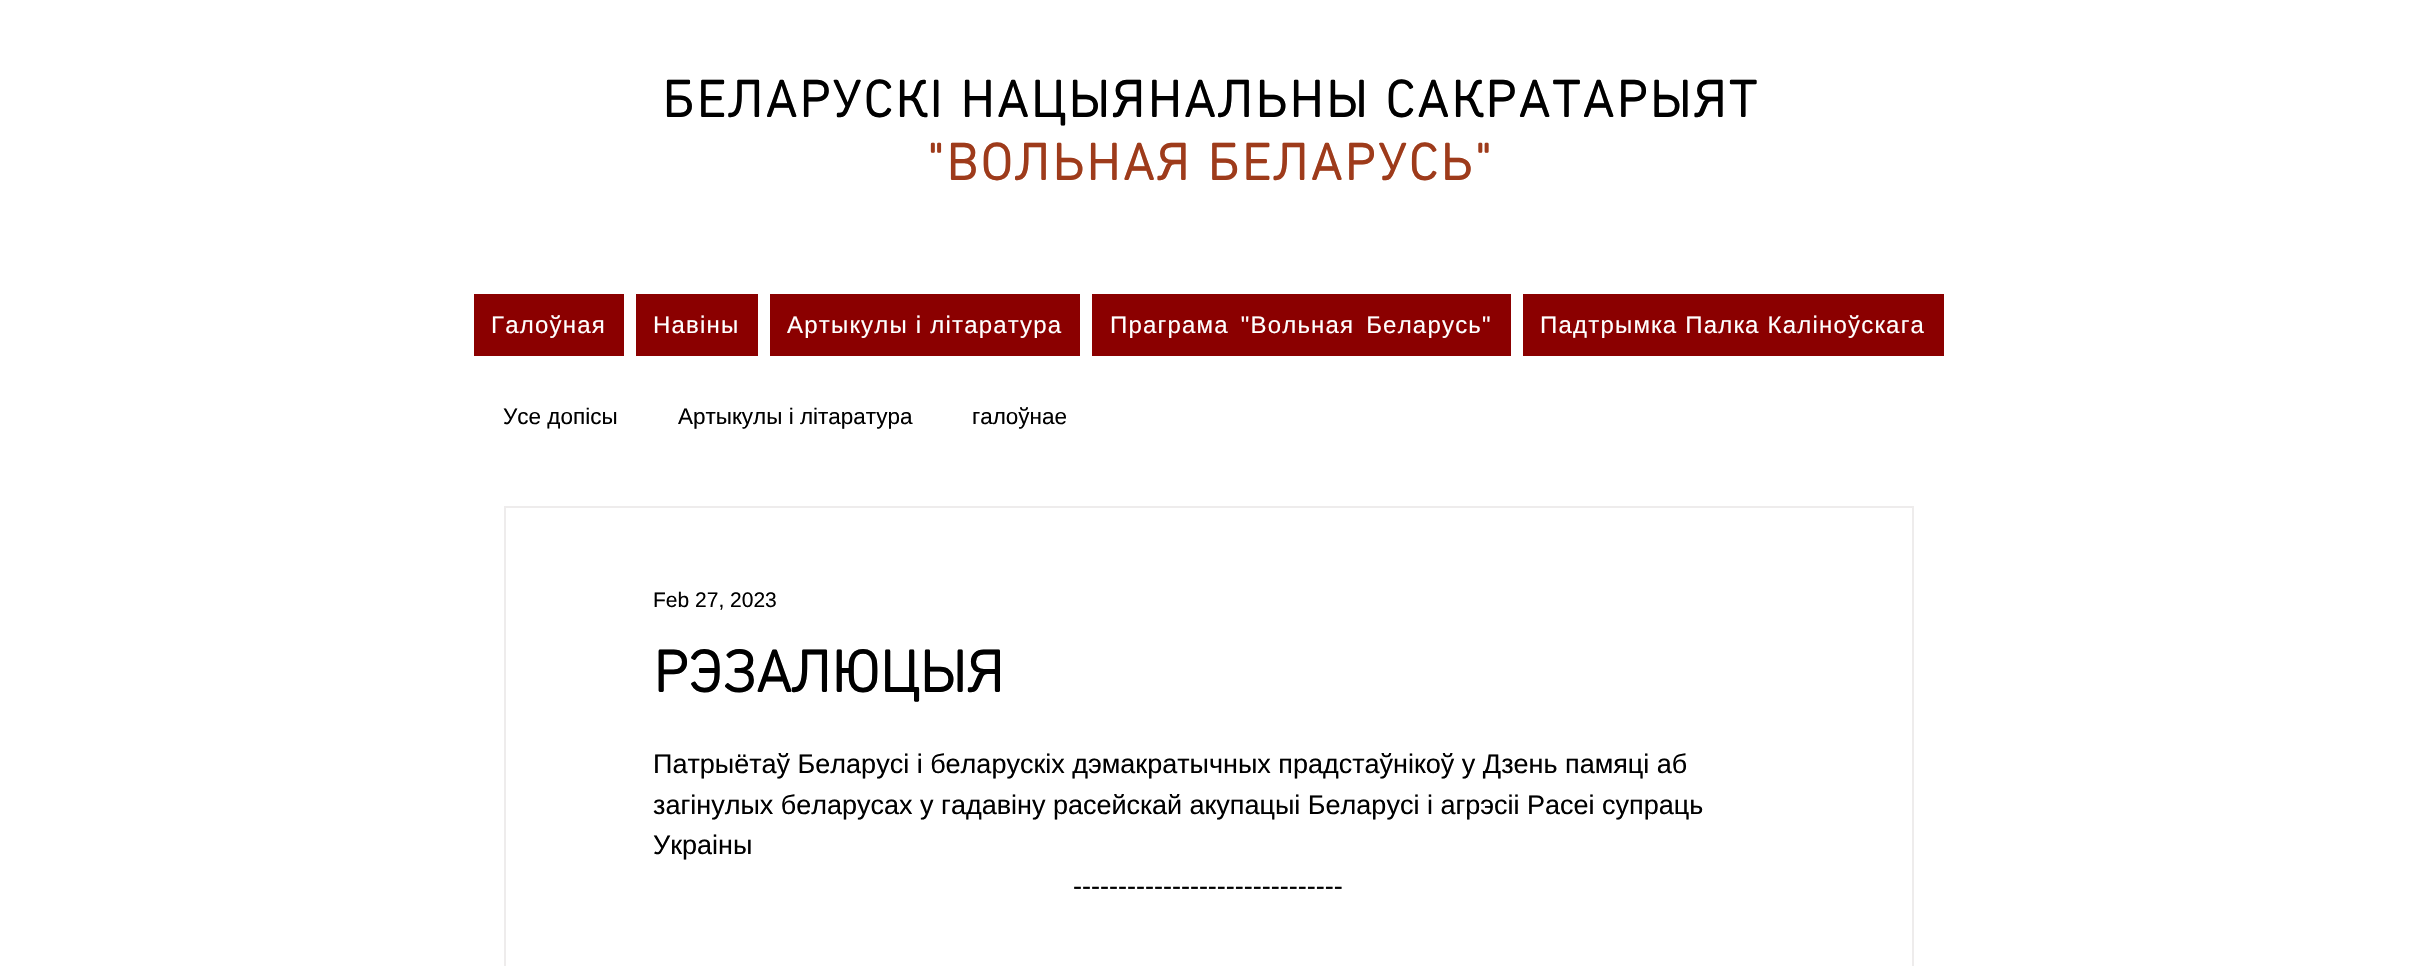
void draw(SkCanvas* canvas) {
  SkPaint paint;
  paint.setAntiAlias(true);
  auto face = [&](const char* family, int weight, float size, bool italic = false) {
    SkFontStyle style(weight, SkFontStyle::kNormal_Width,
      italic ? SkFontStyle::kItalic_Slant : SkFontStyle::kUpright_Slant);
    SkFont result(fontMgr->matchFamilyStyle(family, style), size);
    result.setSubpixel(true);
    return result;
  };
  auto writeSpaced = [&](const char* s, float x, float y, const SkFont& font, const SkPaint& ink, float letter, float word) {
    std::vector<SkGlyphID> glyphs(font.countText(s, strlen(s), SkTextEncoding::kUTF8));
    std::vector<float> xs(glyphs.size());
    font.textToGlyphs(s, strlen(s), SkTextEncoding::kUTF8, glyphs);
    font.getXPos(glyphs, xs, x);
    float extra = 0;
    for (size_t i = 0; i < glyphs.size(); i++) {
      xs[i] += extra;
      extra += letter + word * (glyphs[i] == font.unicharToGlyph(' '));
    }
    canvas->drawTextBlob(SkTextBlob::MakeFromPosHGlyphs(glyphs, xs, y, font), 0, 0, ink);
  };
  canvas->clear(0xffffffff);
  {
    const struct { float x, y, w, h; SkColor color; } items[] = {
      {474, 294, 150, 62, 0xff8b0000},
      {636, 294, 122, 62, 0xff8b0000},
      {770, 294, 310, 62, 0xff8b0000},
      {1092, 294, 419, 62, 0xff8b0000},
      {1523, 294, 421, 62, 0xff8b0000},
    };
    for (auto [x, y, w, h, color] : items) {
      paint.setColor(color);
      canvas->drawRect(SkRect::MakeXYWH(x, y, w, h), paint);
    }
  }
  paint.setStroke(true);
  paint.setStrokeWidth(2);
  paint.setColor(0xffeeecec);
  canvas->drawRect(SkRect::MakeXYWH(505, 507, 1408, 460), paint);
  auto f0 = face("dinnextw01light", 700, 52.5f);
  paint.setStroke(false);
  paint.setColor(0xff000000);
  writeSpaced("БЕЛАРУСКІ НАЦЫЯНАЛЬНЫ САКРАТАРЫЯТ", 662, 117, f0, paint, 2.6f, 0);
  paint.setColor(0xff9e3b1b);
  writeSpaced("\"ВОЛЬНАЯ БЕЛАРУСЬ\"", 927, 180, f0, paint, 2.6f, 0);
  auto f1 = face("Liberation Sans", 400, 24);
  paint.setColor(0xffffffff);
  {
    const struct { const char* s; float x, y; } items[] = {
      {"Галоўная", 491, 333},
      {"Навіны", 653, 333},
      {"Артыкулы і літаратура", 787, 333},
    };
    for (auto [s, x, y] : items) {
      writeSpaced(s, x, y, f1, paint, 1.2f, 0);
    }
  }
  writeSpaced("Праграма \"Вольная Беларусь\"", 1110, 333, f1, paint, 1.2f, 4);
  writeSpaced("Падтрымка Палка Каліноўскага", 1540, 333, f1, paint, 1.2f, 0);
  auto f2 = face("Liberation Sans", 400, 22.5f);
  paint.setColor(0xff000000);
  {
    const struct { const char* s; float x, y; } items[] = {
      {"Усе допісы", 503, 424},
      {"Артыкулы і літаратура", 678, 424},
      {"галоўнае", 972, 424},
    };
    for (auto [s, x, y] : items) {
      canvas->drawString(s, x, y, f2, paint);
    }
  }
  auto f3 = face("Liberation Sans", 400, 21);
  canvas->drawString("Feb 27, 2023", 653, 607, f3, paint);
  auto f4 = face("dinnextw01light", 700, 60);
  canvas->drawString("РЭЗАЛЮЦЫЯ", 653, 692, f4, paint);
  auto f5 = face("Liberation Sans", 400, 27);
  {
    const struct { const char* s; float x, y; } items[] = {
      {"Патрыётаў Беларусі і беларускіх дэмакратычных прадстаўнікоў у Дзень памяці аб", 653, 773},
      {"загінулых беларусах у гадавіну расейскай акупацыі Беларусі і агрэсіі Расеі супраць", 653, 814},
      {"Украіны", 653, 854},
      {"------------------------------", 1073, 895},
    };
    for (auto [s, x, y] : items) {
      canvas->drawString(s, x, y, f5, paint);
    }
  }
}
